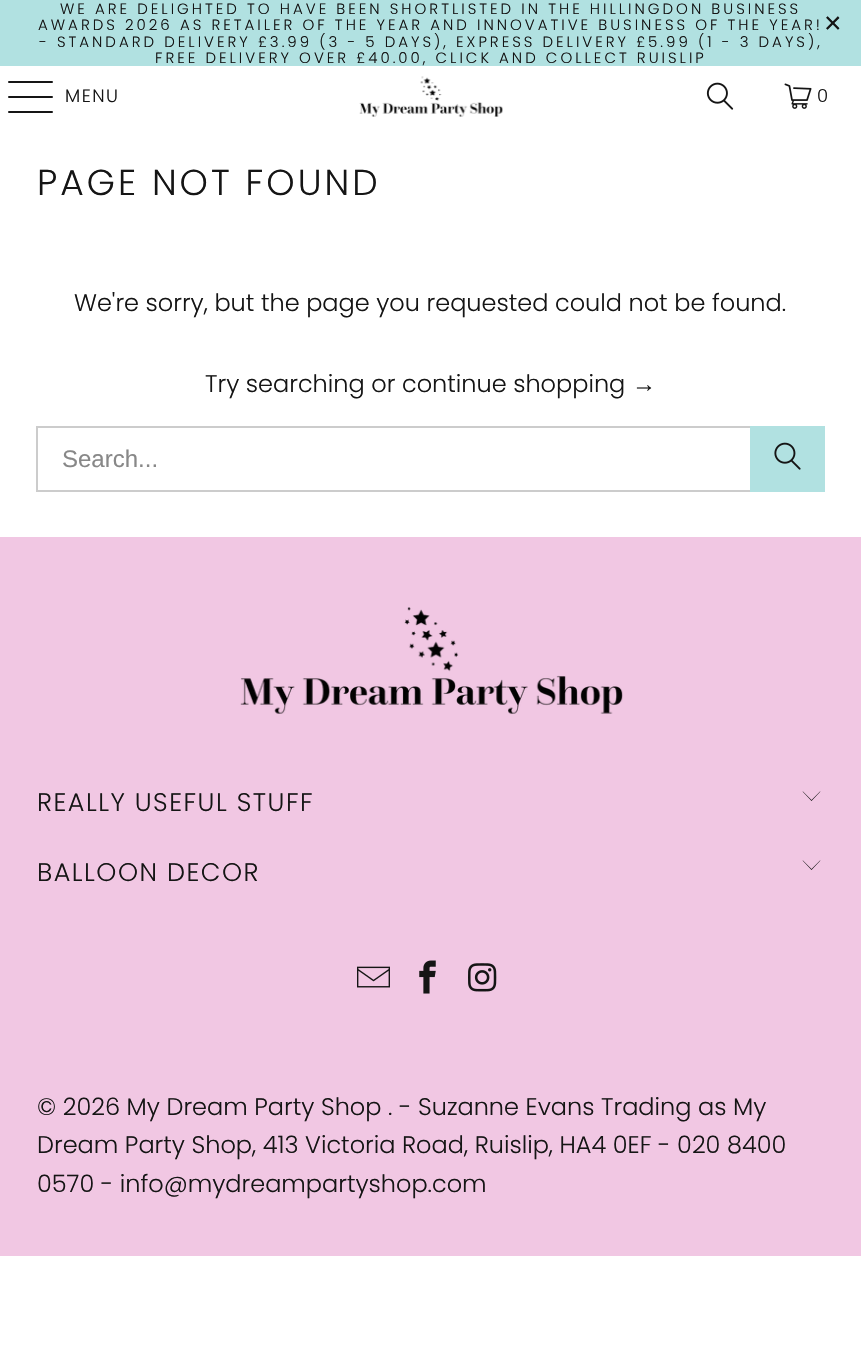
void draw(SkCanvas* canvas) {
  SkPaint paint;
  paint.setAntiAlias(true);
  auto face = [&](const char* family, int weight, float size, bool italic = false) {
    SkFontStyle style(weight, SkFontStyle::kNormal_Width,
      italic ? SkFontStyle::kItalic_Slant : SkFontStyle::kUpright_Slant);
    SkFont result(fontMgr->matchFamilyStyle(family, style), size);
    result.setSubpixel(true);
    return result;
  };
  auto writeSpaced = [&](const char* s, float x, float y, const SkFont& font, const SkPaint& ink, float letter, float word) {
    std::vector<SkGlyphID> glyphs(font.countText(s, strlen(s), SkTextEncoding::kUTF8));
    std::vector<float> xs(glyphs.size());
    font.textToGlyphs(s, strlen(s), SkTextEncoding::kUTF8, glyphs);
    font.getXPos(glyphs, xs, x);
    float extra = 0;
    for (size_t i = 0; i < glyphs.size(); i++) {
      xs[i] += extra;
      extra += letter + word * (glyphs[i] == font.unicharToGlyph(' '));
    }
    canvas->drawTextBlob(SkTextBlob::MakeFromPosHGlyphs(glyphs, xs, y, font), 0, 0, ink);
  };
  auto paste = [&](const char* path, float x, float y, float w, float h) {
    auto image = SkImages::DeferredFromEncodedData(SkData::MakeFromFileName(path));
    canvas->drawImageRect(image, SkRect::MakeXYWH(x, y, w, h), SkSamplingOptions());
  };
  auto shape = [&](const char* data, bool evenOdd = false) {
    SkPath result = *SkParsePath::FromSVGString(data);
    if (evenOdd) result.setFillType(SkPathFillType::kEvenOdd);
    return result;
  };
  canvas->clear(0xffffffff);
  paint.setColor(0xffb1e1e1);
  canvas->drawRect(SkRect::MakeXYWH(0, 0, 861, 66), paint);
  paint.setColor(0xff151515);
  canvas->drawRoundRect(SkRect::MakeXYWH(8, 81, 45, 2), 1, 1, paint);
  canvas->drawRoundRect(SkRect::MakeXYWH(8, 96, 45, 2), 1, 1, paint);
  canvas->drawRoundRect(SkRect::MakeXYWH(8, 111, 45, 2), 1, 1, paint);
  paste("img/1.png", 359, 76, 144, 41);
  paste("img/2.png", 706, 82, 28, 28);
  paste("img/3.png", 784, 83, 28, 26);
  paint.setStroke(true);
  paint.setStrokeWidth(2);
  paint.setColor(0xffcccccc);
  canvas->drawRect(SkRect::MakeXYWH(37, 427, 787, 64), paint);
  paint.setStroke(false);
  paint.setColor(0xffb1e1e1);
  canvas->drawRect(SkRect::MakeXYWH(750, 426, 75, 66), paint);
  paste("img/4.png", 774, 442, 27, 28);
  paint.setColor(0xfff1c7e3);
  canvas->drawRect(SkRect::MakeXYWH(0, 537, 861, 719), paint);
  paste("img/5.png", 240, 607, 383, 107);
  paint.setColor(0xff151515);
  canvas->drawPath(shape("M811.5 801L802.5 791.5H803L811.5 800L820 791.5H820.5Z"), paint);
  canvas->drawPath(shape("M811.5 870L802.5 860.5H803L811.5 869L820 860.5H820.5Z"), paint);
  paste("img/6.png", 357, 966, 33, 22);
  paste("img/7.png", 419, 960, 17, 34);
  paste("img/8.png", 468, 963, 29, 29);
  auto f0 = face("Poppins", 300, 15);
  {
    const struct { const char* s; float x, y; } items[] = {
      {"WE ARE DELIGHTED TO HAVE BEEN SHORTLISTED IN THE HILLINGDON BUSINESS", 60, 14},
      {"AWARDS 2026 AS RETAILER OF THE YEAR AND INNOVATIVE BUSINESS OF THE YEAR!", 38, 30},
      {"- STANDARD DELIVERY £3.99 (3 - 5 DAYS), EXPRESS DELIVERY £5.99 (1 - 3 DAYS),", 39, 47},
      {"FREE DELIVERY OVER £40.00, CLICK AND COLLECT RUISLIP", 155, 63},
    };
    for (auto [s, x, y] : items) {
      writeSpaced(s, x, y, f0, paint, 3, 0);
    }
  }
  auto f1 = face("Liberation Sans", 400, 30);
  writeSpaced("×", 824, 33, f1, paint, 3, 0);
  auto f2 = face("Poppins", 300, 18);
  writeSpaced("MENU", 65, 102, f2, paint, 1.5f, 0);
  writeSpaced("0", 817, 102, f2, paint, 1.5f, 0);
  auto f3 = face("Poppins", 300, 36);
  writeSpaced("PAGE NOT FOUND", 37, 195, f3, paint, 3, 0);
  auto f4 = face("Poppins", 300, 24);
  canvas->drawString("We're sorry, but the page you requested could not be found.", 74, 311, f4, paint);
  canvas->drawString("Try searching or continue shopping", 205, 392, f4, paint);
  auto f5 = face("Liberation Sans", 400, 24);
  canvas->drawString("→", 632, 392, f5, paint);
  paint.setColor(0xff888888);
  canvas->drawString("Search...", 62, 467, f5, paint);
  auto f6 = face("Poppins", 300, 25.5f);
  paint.setColor(0xff151515);
  writeSpaced("REALLY USEFUL STUFF", 37, 811, f6, paint, 1.5f, 0);
  writeSpaced("BALLOON DECOR", 37, 881, f6, paint, 1.5f, 0);
  {
    const struct { const char* s; float x, y; } items[] = {
      {"© 2026 My Dream Party Shop", 37, 1115},
      {". - Suzanne Evans Trading as My", 388, 1115},
      {"Dream Party Shop, 413 Victoria Road, Ruislip, HA4 0EF - 020 8400", 37, 1153},
      {"0570 - info@mydreampartyshop.com", 37, 1192},
    };
    for (auto [s, x, y] : items) {
      canvas->drawString(s, x, y, f4, paint);
    }
  }
}
